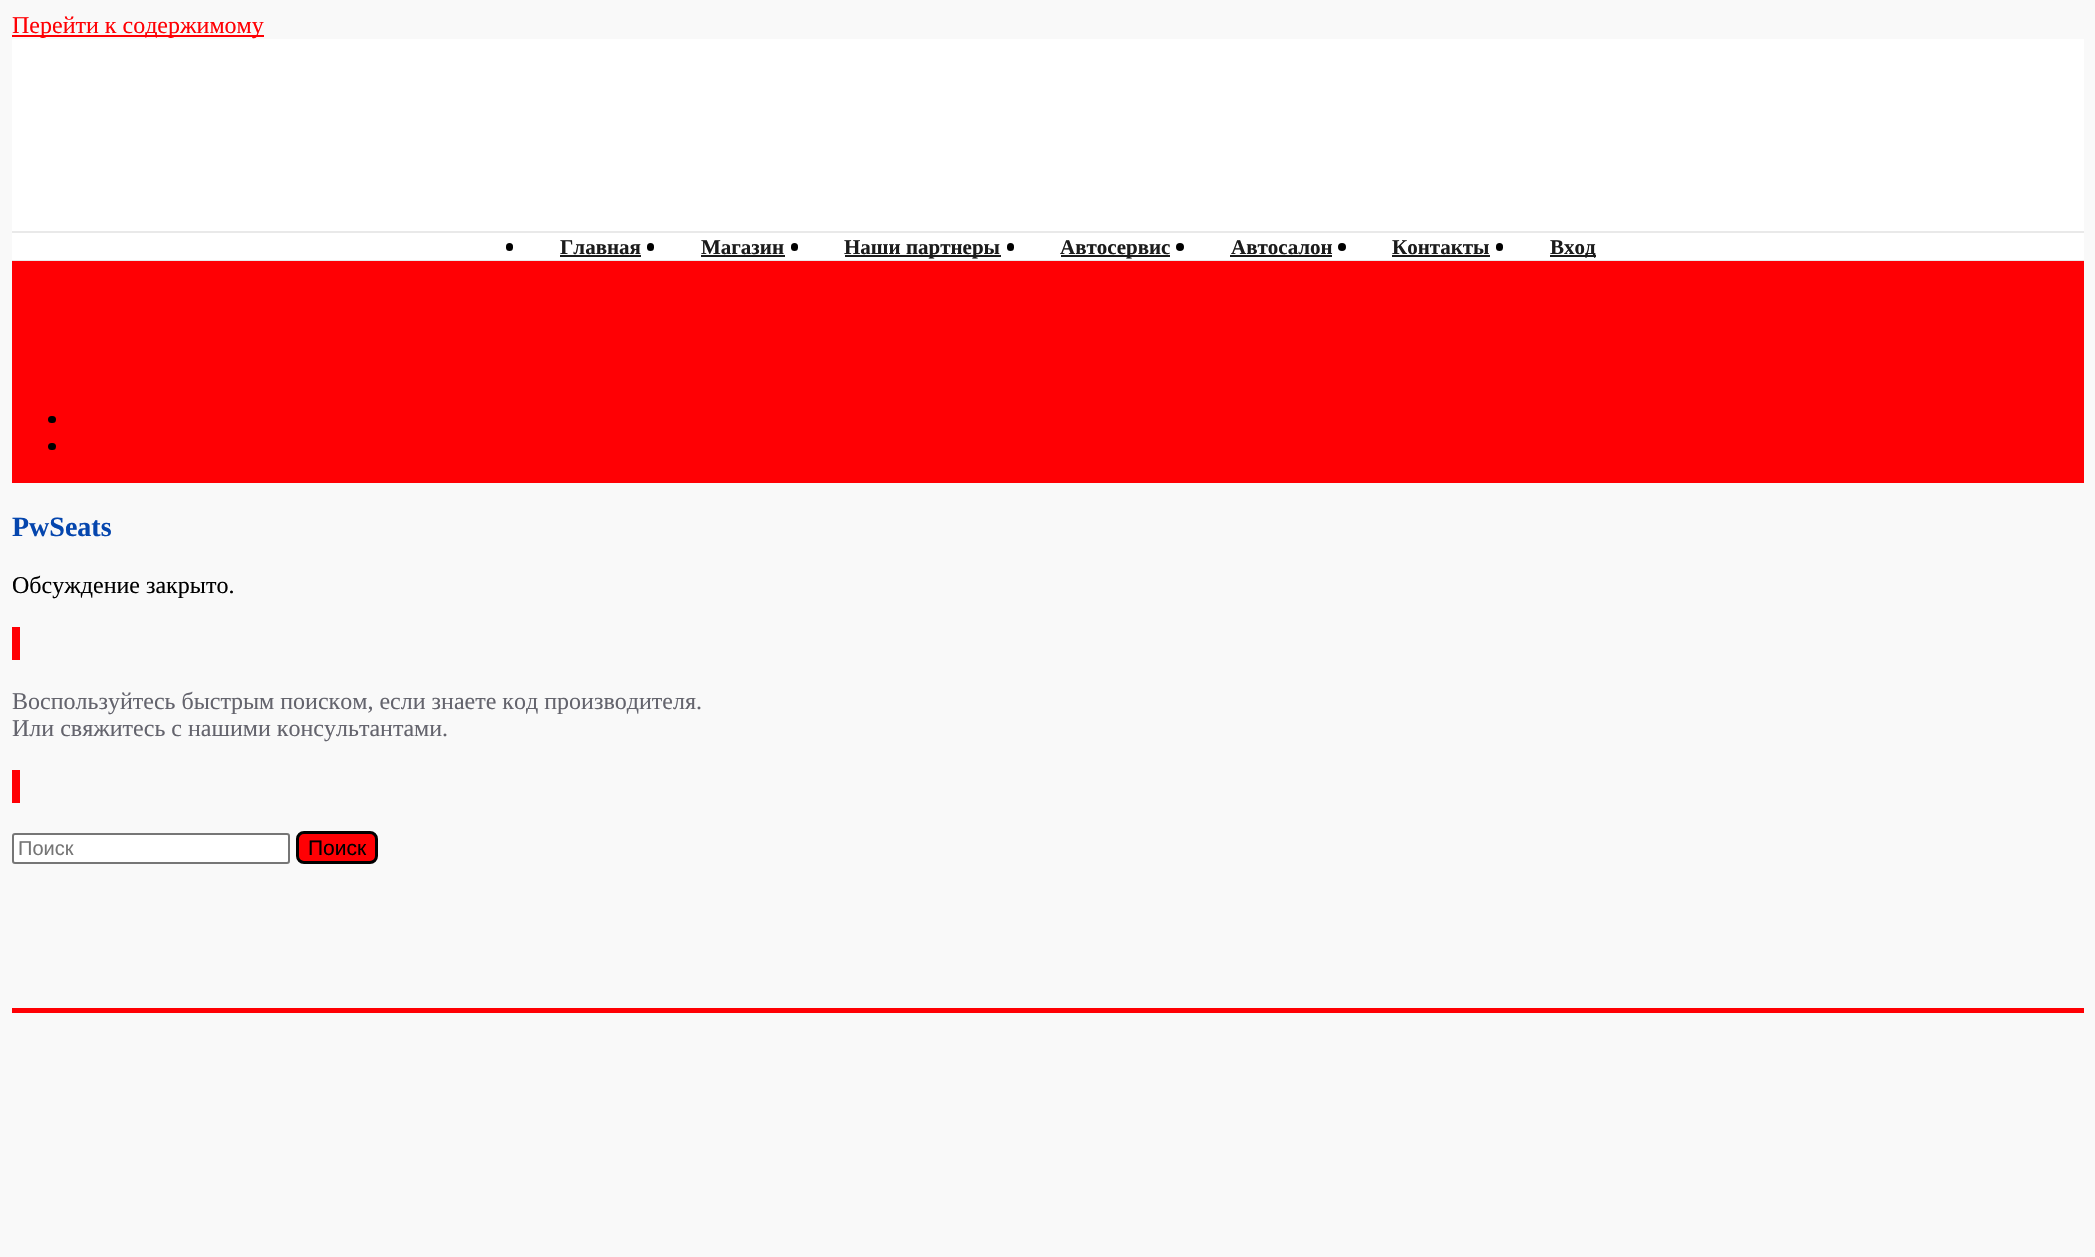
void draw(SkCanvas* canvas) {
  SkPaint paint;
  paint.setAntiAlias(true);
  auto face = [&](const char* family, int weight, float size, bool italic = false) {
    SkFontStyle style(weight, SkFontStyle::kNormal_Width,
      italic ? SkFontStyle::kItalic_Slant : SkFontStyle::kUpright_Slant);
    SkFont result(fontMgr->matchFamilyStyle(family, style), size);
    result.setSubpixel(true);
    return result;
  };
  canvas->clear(0xfff9f9f9);
  {
    const struct { float x, y, w, h; SkColor color; } items[] = {
      {12, 35, 252, 2, 0xffff0004},
      {12, 39, 2072, 221, 0xffffffff},
      {12, 231, 2072, 2, 0xffe9e9e9},
      {12, 260, 2072, 1, 0xffe9e9e9},
    };
    for (auto [x, y, w, h, color] : items) {
      paint.setColor(color);
      canvas->drawRect(SkRect::MakeXYWH(x, y, w, h), paint);
    }
  }
  paint.setColor(0xff000000);
  canvas->drawRoundRect(SkRect::MakeXYWH(506, 243, 7, 8), 3.5f, 3.5f, paint);
  paint.setColor(0xff1b1b1b);
  canvas->drawRect(SkRect::MakeXYWH(560, 255, 81, 2), paint);
  paint.setColor(0xff000000);
  canvas->drawRoundRect(SkRect::MakeXYWH(647, 243, 7, 8), 3.5f, 3.5f, paint);
  paint.setColor(0xff1b1b1b);
  canvas->drawRect(SkRect::MakeXYWH(701, 255, 84, 2), paint);
  paint.setColor(0xff000000);
  canvas->drawRoundRect(SkRect::MakeXYWH(791, 243, 7, 8), 3.5f, 3.5f, paint);
  paint.setColor(0xff1b1b1b);
  canvas->drawRect(SkRect::MakeXYWH(845, 255, 156, 2), paint);
  paint.setColor(0xff000000);
  canvas->drawRoundRect(SkRect::MakeXYWH(1007, 243, 7, 8), 3.5f, 3.5f, paint);
  paint.setColor(0xff1b1b1b);
  canvas->drawRect(SkRect::MakeXYWH(1061, 255, 109, 2), paint);
  paint.setColor(0xff000000);
  canvas->drawCircle(1180, 247, 4, paint);
  paint.setColor(0xff1b1b1b);
  canvas->drawRect(SkRect::MakeXYWH(1230, 255, 102, 2), paint);
  paint.setColor(0xff000000);
  canvas->drawCircle(1342, 247, 4, paint);
  paint.setColor(0xff1b1b1b);
  canvas->drawRect(SkRect::MakeXYWH(1392, 255, 98, 2), paint);
  paint.setColor(0xff000000);
  canvas->drawRoundRect(SkRect::MakeXYWH(1496, 243, 7, 8), 3.5f, 3.5f, paint);
  paint.setColor(0xff1b1b1b);
  canvas->drawRect(SkRect::MakeXYWH(1550, 255, 46, 2), paint);
  paint.setColor(0xffff0004);
  canvas->drawRect(SkRect::MakeXYWH(12, 261, 2072, 222), paint);
  paint.setColor(0xff000000);
  canvas->drawRoundRect(SkRect::MakeXYWH(48, 416, 8, 7), 3.5f, 3.5f, paint);
  canvas->drawRoundRect(SkRect::MakeXYWH(48, 443, 8, 7), 3.5f, 3.5f, paint);
  paint.setColor(0xffff0004);
  canvas->drawRect(SkRect::MakeXYWH(12, 627, 8, 33), paint);
  canvas->drawRect(SkRect::MakeXYWH(12, 770, 8, 33), paint);
  paint.setColor(0xffffffff);
  canvas->drawRoundRect(SkRect::MakeXYWH(13, 834, 276, 29), 2, 2, paint);
  paint.setStroke(true);
  paint.setStrokeWidth(2);
  paint.setColor(0xff767676);
  canvas->drawRoundRect(SkRect::MakeXYWH(13, 834, 276, 29), 2, 2, paint);
  paint.setStroke(false);
  paint.setColor(0xffff0004);
  canvas->drawRoundRect(SkRect::MakeXYWH(297.5f, 832.5f, 79, 30), 6.5f, 6.5f, paint);
  paint.setStroke(true);
  paint.setStrokeWidth(3);
  paint.setColor(0xff000000);
  canvas->drawRoundRect(SkRect::MakeXYWH(297.5f, 832.5f, 79, 30), 6.5f, 6.5f, paint);
  paint.setStroke(false);
  paint.setColor(0xffff0004);
  canvas->drawRect(SkRect::MakeXYWH(12, 1008, 2072, 5), paint);
  auto f0 = face("Liberation Serif", 400, 24);
  canvas->drawString("Перейти к содержимому", 12, 33, f0, paint);
  auto f1 = face("Liberation Serif", 700, 21);
  paint.setColor(0xff1b1b1b);
  {
    const struct { const char* s; float x, y; } items[] = {
      {"Главная", 560, 254},
      {"Магазин", 701, 254},
      {"Наши партнеры", 844, 254},
      {"Автосервис", 1060, 254},
      {"Автосалон", 1231, 254},
      {"Контакты", 1392, 254},
      {"Вход", 1550, 254},
    };
    for (auto [s, x, y] : items) {
      canvas->drawString(s, x, y, f1, paint);
    }
  }
  auto f2 = face("Liberation Serif", 700, 28);
  paint.setColor(0xff0546ae);
  canvas->drawString("PwSeats", 12, 536, f2, paint);
  paint.setColor(0xff000000);
  canvas->drawString("Обсуждение закрыто.", 12, 593, f0, paint);
  paint.setColor(0xff64646d);
  canvas->drawString("Воспользуйтесь быстрым поиском, если знаете код производителя.", 12, 709, f0, paint);
  canvas->drawString("Или свяжитесь с нашими консультантами.", 12, 736, f0, paint);
  auto f3 = face("Liberation Sans", 400, 20);
  paint.setColor(0xff757575);
  canvas->drawString("Поиск", 18, 855, f3, paint);
  auto f4 = face("Liberation Sans", 400, 21);
  paint.setColor(0xff000000);
  canvas->drawString("Поиск", 308, 855, f4, paint);
}
